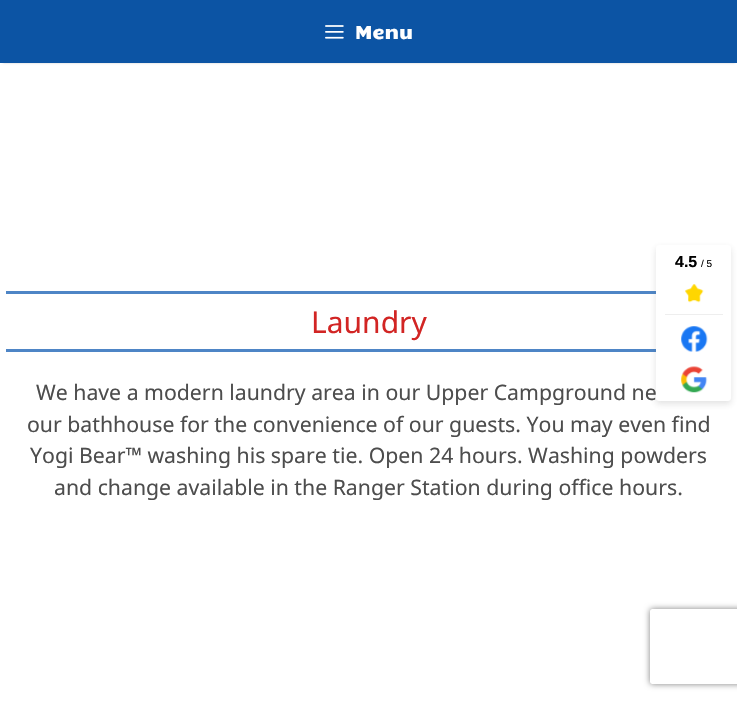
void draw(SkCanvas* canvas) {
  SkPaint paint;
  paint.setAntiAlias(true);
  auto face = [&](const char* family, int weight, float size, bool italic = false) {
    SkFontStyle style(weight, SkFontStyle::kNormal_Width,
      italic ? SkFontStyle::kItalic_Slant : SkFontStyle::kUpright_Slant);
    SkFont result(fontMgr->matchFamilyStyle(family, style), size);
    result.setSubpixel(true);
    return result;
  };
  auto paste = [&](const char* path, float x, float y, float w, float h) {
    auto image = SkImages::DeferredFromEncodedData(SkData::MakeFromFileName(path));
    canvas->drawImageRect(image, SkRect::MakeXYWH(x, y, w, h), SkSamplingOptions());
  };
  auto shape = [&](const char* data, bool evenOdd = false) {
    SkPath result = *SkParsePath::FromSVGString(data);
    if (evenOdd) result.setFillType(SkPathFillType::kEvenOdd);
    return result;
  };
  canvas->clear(0xffffffff);
  paint.setColor(0x33000000);
  paint.setMaskFilter(SkMaskFilter::MakeBlur(kNormal_SkBlurStyle, 1));
  canvas->drawRect(SkRect::MakeXYWH(3, 5, 732, 58), paint);
  paint.setMaskFilter(nullptr);
  paint.setColor(0xff0c54a4);
  canvas->drawRect(SkRect::MakeXYWH(0, 0, 737, 63), paint);
  paste("img/1.png", 325, 25, 19, 14);
  paint.setColor(0xff4e85c6);
  canvas->drawRect(SkRect::MakeXYWH(6, 291, 650, 3), paint);
  canvas->drawRect(SkRect::MakeXYWH(6, 349, 650, 3), paint);
  paint.setColor(0x29484848);
  paint.setMaskFilter(SkMaskFilter::MakeBlur(kNormal_SkBlurStyle, 3));
  canvas->drawRoundRect(SkRect::MakeXYWH(656, 248, 75, 156), 3, 3, paint);
  paint.setMaskFilter(nullptr);
  paint.setColor(0xffffffff);
  canvas->drawRoundRect(SkRect::MakeXYWH(656, 245, 75, 156), 3, 3, paint);
  paste("img/2.png", 685, 284, 19, 19);
  paint.setColor(0xffeeeeee);
  canvas->drawRect(SkRect::MakeXYWH(665, 314, 58, 1), paint);
  paste("img/3.png", 681, 326, 27, 26);
  paste("img/4.png", 681, 366, 27, 27);
  canvas->save();
  canvas->clipPath(shape("M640 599H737V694H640ZM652.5 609H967.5C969 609 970 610 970 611.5V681.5C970 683 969 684 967.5 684H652.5C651 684 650 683 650 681.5V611.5C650 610 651 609 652.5 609Z", true), true);
  paint.setColor(0xff808080);
  paint.setMaskFilter(SkMaskFilter::MakeBlur(kNormal_SkBlurStyle, 3));
  canvas->drawRoundRect(SkRect::MakeXYWH(650, 609, 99, 75), 2.5f, 2.5f, paint);
  paint.setMaskFilter(nullptr);
  canvas->restore();
  auto f0 = face("Candal", 400, 19);
  paint.setColor(0xffffffff);
  canvas->drawString("Menu", 355, 39, f0, paint);
  auto f1 = face("Liberation Sans", 700, 16);
  paint.setColor(0xff000000);
  canvas->drawString("4.5", 675, 267, f1, paint);
  auto f2 = face("Liberation Sans", 400, 10);
  canvas->drawString("/ 5", 701, 267, f2, paint);
  auto f3 = face("Noto Sans", 400, 30);
  paint.setColor(0xffd22524);
  canvas->drawString("Laundry", 311, 333, f3, paint);
  auto f4 = face("Noto Sans", 400, 21.25f);
  paint.setColor(0xff4d4d4d);
  {
    const struct { const char* s; float x, y; } items[] = {
      {"We have a modern laundry area in our Upper Campground ne", 36, 400},
      {"our bathhouse for the convenience of our guests. You may even find", 27, 432},
      {"Yogi Bear™ washing his spare tie. Open 24 hours. Washing powders", 30, 463},
      {"and change available in the Ranger Station during office hours.", 54, 495},
    };
    for (auto [s, x, y] : items) {
      canvas->drawString(s, x, y, f4, paint);
    }
  }
}
